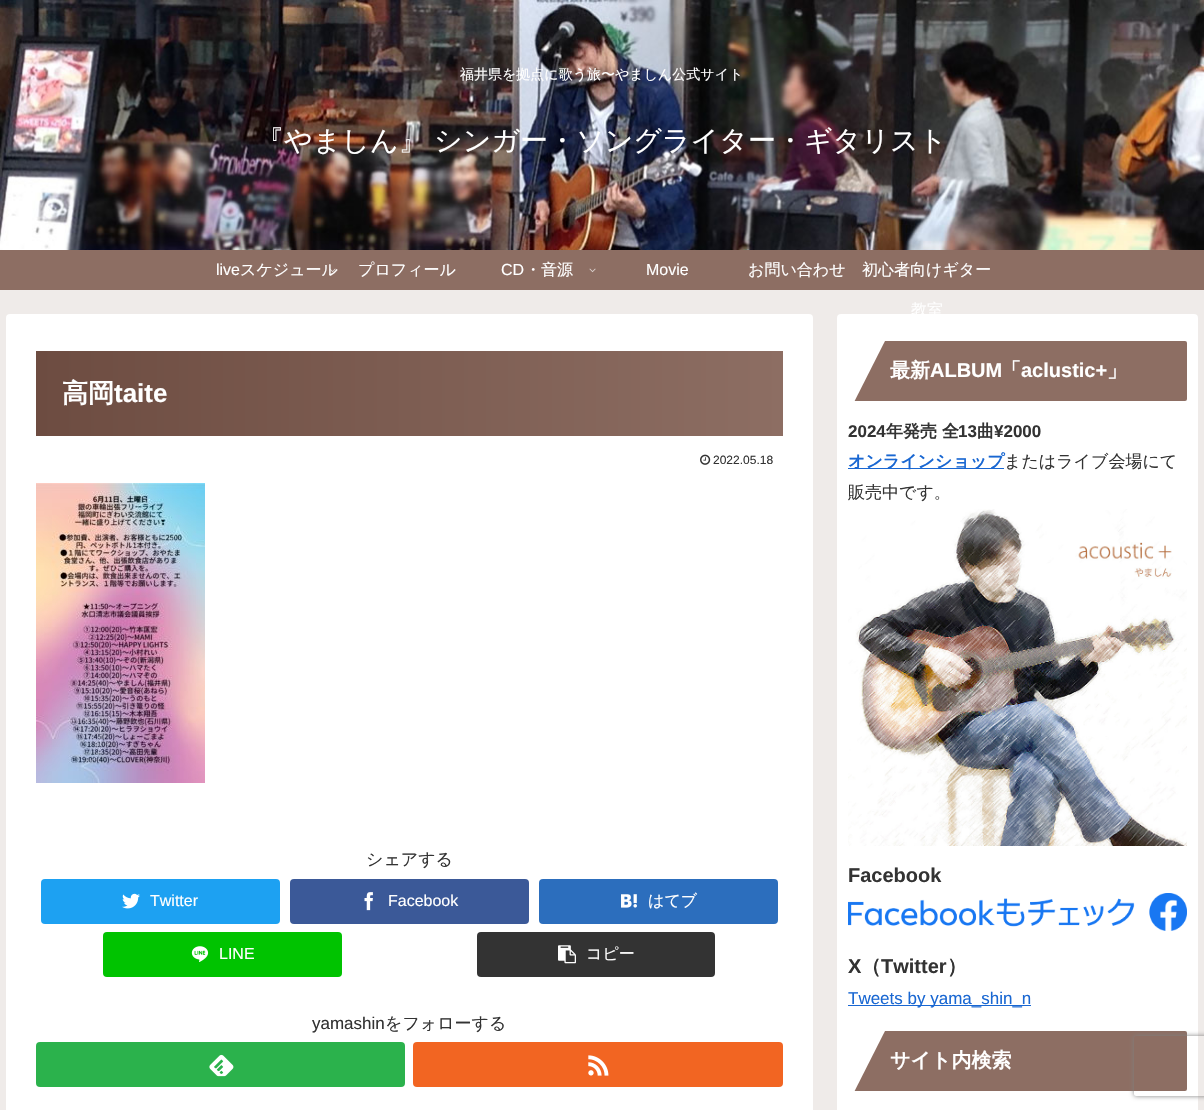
void draw(SkCanvas* canvas) {
  SkPaint paint;
  paint.setAntiAlias(true);
  auto face = [&](const char* family, int weight, float size, bool italic = false) {
    SkFontStyle style(weight, SkFontStyle::kNormal_Width,
      italic ? SkFontStyle::kItalic_Slant : SkFontStyle::kUpright_Slant);
    SkFont result(fontMgr->matchFamilyStyle(family, style), size);
    result.setSubpixel(true);
    return result;
  };
  auto writeSpaced = [&](const char* s, float x, float y, const SkFont& font, const SkPaint& ink, float letter, float word) {
    std::vector<SkGlyphID> glyphs(font.countText(s, strlen(s), SkTextEncoding::kUTF8));
    std::vector<float> xs(glyphs.size());
    font.textToGlyphs(s, strlen(s), SkTextEncoding::kUTF8, glyphs);
    font.getXPos(glyphs, xs, x);
    float extra = 0;
    for (size_t i = 0; i < glyphs.size(); i++) {
      xs[i] += extra;
      extra += letter + word * (glyphs[i] == font.unicharToGlyph(' '));
    }
    canvas->drawTextBlob(SkTextBlob::MakeFromPosHGlyphs(glyphs, xs, y, font), 0, 0, ink);
  };
  auto paste = [&](const char* path, float x, float y, float w, float h) {
    auto image = SkImages::DeferredFromEncodedData(SkData::MakeFromFileName(path));
    canvas->drawImageRect(image, SkRect::MakeXYWH(x, y, w, h), SkSamplingOptions());
  };
  auto shape = [&](const char* data, bool evenOdd = false) {
    SkPath result = *SkParsePath::FromSVGString(data);
    if (evenOdd) result.setFillType(SkPathFillType::kEvenOdd);
    return result;
  };
  canvas->clear(0xffefebe9);
  paint.setColor(0xff8d6e63);
  canvas->drawRect(SkRect::MakeXYWH(0, 250, 1204, 40), paint);
  paste("img/1.png", 0, 0, 1204, 250);
  paste("img/3.png", 589, 268, 7, 5);
  paint.setColor(0xffffffff);
  canvas->drawRoundRect(SkRect::MakeXYWH(6, 314, 807, 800), 4, 4, paint);
  {
    const SkColor colors[] = {0xff6d4c41, 0xff8d6e63};
    const float stops[] = {0, 1};
    const SkPoint ends[] = {{36, 394}, {783, 394}};
    paint.setShader(SkGradientShader::MakeLinear(ends, colors, stops, 2, SkTileMode::kClamp));
    paint.setAlpha(255);
  }
  canvas->drawRect(SkRect::MakeXYWH(36, 351, 747, 85), paint);
  paste("img/4.png", 700, 454, 11, 11);
  paste("img/5.png", 36, 483, 169, 300);
  paint.setShader(nullptr);
  paint.setColor(0xff1da1f2);
  canvas->drawRoundRect(SkRect::MakeXYWH(41, 879, 239, 45), 4, 4, paint);
  paste("img/6.png", 122, 893, 18, 16);
  paint.setColor(0xff3b5998);
  canvas->drawRoundRect(SkRect::MakeXYWH(290, 879, 239, 45), 4, 4, paint);
  paste("img/7.png", 364, 892, 9, 19);
  paint.setColor(0xff2c6ebd);
  canvas->drawRoundRect(SkRect::MakeXYWH(539, 879, 239, 45), 4, 4, paint);
  paste("img/8.png", 621, 894, 16, 14);
  paint.setColor(0xff00c300);
  canvas->drawRoundRect(SkRect::MakeXYWH(103, 932, 239, 45), 4, 4, paint);
  paste("img/9.png", 191, 946, 18, 16);
  paint.setColor(0xff333333);
  canvas->drawRoundRect(SkRect::MakeXYWH(477, 932, 238, 45), 4, 4, paint);
  paste("img/10.png", 558, 945, 18, 19);
  paint.setColor(0xff2bb24c);
  canvas->drawRoundRect(SkRect::MakeXYWH(36, 1042, 369, 45), 4, 4, paint);
  paste("img/11.png", 209, 1054, 25, 23);
  paint.setColor(0xfff26522);
  canvas->drawRoundRect(SkRect::MakeXYWH(413, 1042, 370, 45), 4, 4, paint);
  paste("img/12.png", 588, 1055, 21, 21);
  paint.setColor(0xffffffff);
  canvas->drawRoundRect(SkRect::MakeXYWH(837, 314, 361, 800), 4, 4, paint);
  paint.setColor(0xff8d6e63);
  canvas->drawRoundRect(SkRect::MakeXYWH(848, 341, 339, 60), 2, 2, paint);
  paint.setColor(0xffffffff);
  canvas->drawPath(shape("M846 418V339H886Z"), paint);
  paint.setColor(0xff1967d2);
  canvas->drawRect(SkRect::MakeXYWH(848, 468, 156, 1), paint);
  paste("img/13.png", 848, 509, 339, 337);
  paste("img/14.png", 848, 893, 339, 38);
  canvas->drawRect(SkRect::MakeXYWH(848, 1005, 183, 1), paint);
  paint.setColor(0xff8d6e63);
  canvas->drawRoundRect(SkRect::MakeXYWH(848, 1031, 339, 60), 2, 2, paint);
  paint.setColor(0xffffffff);
  canvas->drawPath(shape("M846 1108V1029H886Z"), paint);
  canvas->save();
  canvas->clipPath(shape("M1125 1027H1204V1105H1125ZM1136 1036H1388C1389 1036 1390 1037 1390 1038V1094C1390 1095 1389 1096 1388 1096H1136C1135 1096 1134 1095 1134 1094V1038C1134 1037 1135 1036 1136 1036Z", true), true);
  paint.setColor(0xff808080);
  paint.setMaskFilter(SkMaskFilter::MakeBlur(kNormal_SkBlurStyle, 2.5f));
  canvas->drawRoundRect(SkRect::MakeXYWH(1134, 1036, 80, 60), 2, 2, paint);
  paint.setMaskFilter(nullptr);
  canvas->restore();
  auto f0 = face("WenQuanYi Zen Hei", 500, 14);
  paint.setColor(0xffffffff);
  canvas->drawString("福井県を拠点に歌う旅〜やましん公式サイト", 460, 79, f0, paint);
  auto f1 = face("WenQuanYi Zen Hei", 500, 28);
  writeSpaced("『やましん』 シンガー・ソングライター・ギタリスト", 256, 150, f1, paint, 0, -1);
  auto f2 = face("Liberation Sans", 400, 16);
  canvas->drawString("live", 216, 275, f2, paint);
  auto f3 = face("WenQuanYi Zen Hei", 500, 16);
  canvas->drawString("スケジュール", 240, 275, f3, paint);
  paste("img/2.png", 329, 268, 7, 5);
  canvas->drawString("プロフィール", 358, 275, f3, paint);
  canvas->drawString("CD", 501, 275, f2, paint);
  canvas->drawString("・音源", 525, 275, f3, paint);
  canvas->drawString("Movie", 646, 275, f2, paint);
  {
    const struct { const char* s; float x, y; } items[] = {
      {"お問い合わせ", 748, 275},
      {"初心者向けギター", 862, 275},
      {"教室", 911, 315},
    };
    for (auto [s, x, y] : items) {
      canvas->drawString(s, x, y, f3, paint);
    }
  }
  auto f4 = face("WenQuanYi Zen Hei", 700, 26);
  canvas->drawString("高岡", 62, 402, f4, paint);
  auto f5 = face("Liberation Sans", 700, 26);
  canvas->drawString("taite", 114, 402, f5, paint);
  auto f6 = face("Liberation Sans", 400, 12);
  paint.setColor(0xff333333);
  canvas->drawString("2022.05.18", 713, 464, f6, paint);
  auto f7 = face("WenQuanYi Zen Hei", 500, 17);
  canvas->drawString("シェアする", 366, 865, f7, paint);
  paint.setColor(0xffffffff);
  canvas->drawString("Twitter", 150, 906, f2, paint);
  canvas->drawString("Facebook", 388, 906, f2, paint);
  canvas->drawString("はてブ", 648, 906, f3, paint);
  canvas->drawString("LINE", 219, 959, f2, paint);
  canvas->drawString("コピー", 586, 959, f3, paint);
  auto f8 = face("Liberation Sans", 400, 17);
  paint.setColor(0xff333333);
  canvas->drawString("yamashin", 312, 1029, f8, paint);
  canvas->drawString("をフォローする", 385, 1029, f7, paint);
  auto f9 = face("WenQuanYi Zen Hei", 700, 20);
  paint.setColor(0xffffffff);
  canvas->drawString("最新", 890, 377, f9, paint);
  auto f10 = face("Liberation Sans", 700, 20);
  canvas->drawString("ALBUM", 930, 377, f10, paint);
  canvas->drawString("「", 1001, 377, f9, paint);
  canvas->drawString("aclustic+", 1021, 377, f10, paint);
  canvas->drawString("」", 1107, 377, f9, paint);
  auto f11 = face("Liberation Sans", 700, 17);
  paint.setColor(0xff333333);
  canvas->drawString("2024", 848, 437, f11, paint);
  auto f12 = face("WenQuanYi Zen Hei", 700, 17);
  canvas->drawString("年発売 全", 886, 437, f12, paint);
  canvas->drawString("13", 958, 437, f11, paint);
  canvas->drawString("曲", 977, 437, f12, paint);
  canvas->drawString("¥2000", 994, 437, f11, paint);
  paint.setColor(0xff1967d2);
  canvas->drawString("オンラインショップ", 848, 467, f12, paint);
  paint.setColor(0xff333333);
  canvas->drawString("またはライブ会場にて", 1004, 467, f7, paint);
  canvas->drawString("販売中です。", 848, 498, f7, paint);
  canvas->drawString("Facebook", 848, 882, f10, paint);
  canvas->drawString("X", 848, 973, f10, paint);
  canvas->drawString("（", 861, 973, f9, paint);
  canvas->drawString("Twitter", 881, 973, f10, paint);
  canvas->drawString("）", 947, 973, f9, paint);
  paint.setColor(0xff1967d2);
  canvas->drawString("Tweets by yama_shin_n", 848, 1004, f8, paint);
  paint.setColor(0xffffffff);
  canvas->drawString("サイト内検索", 890, 1067, f9, paint);
}
